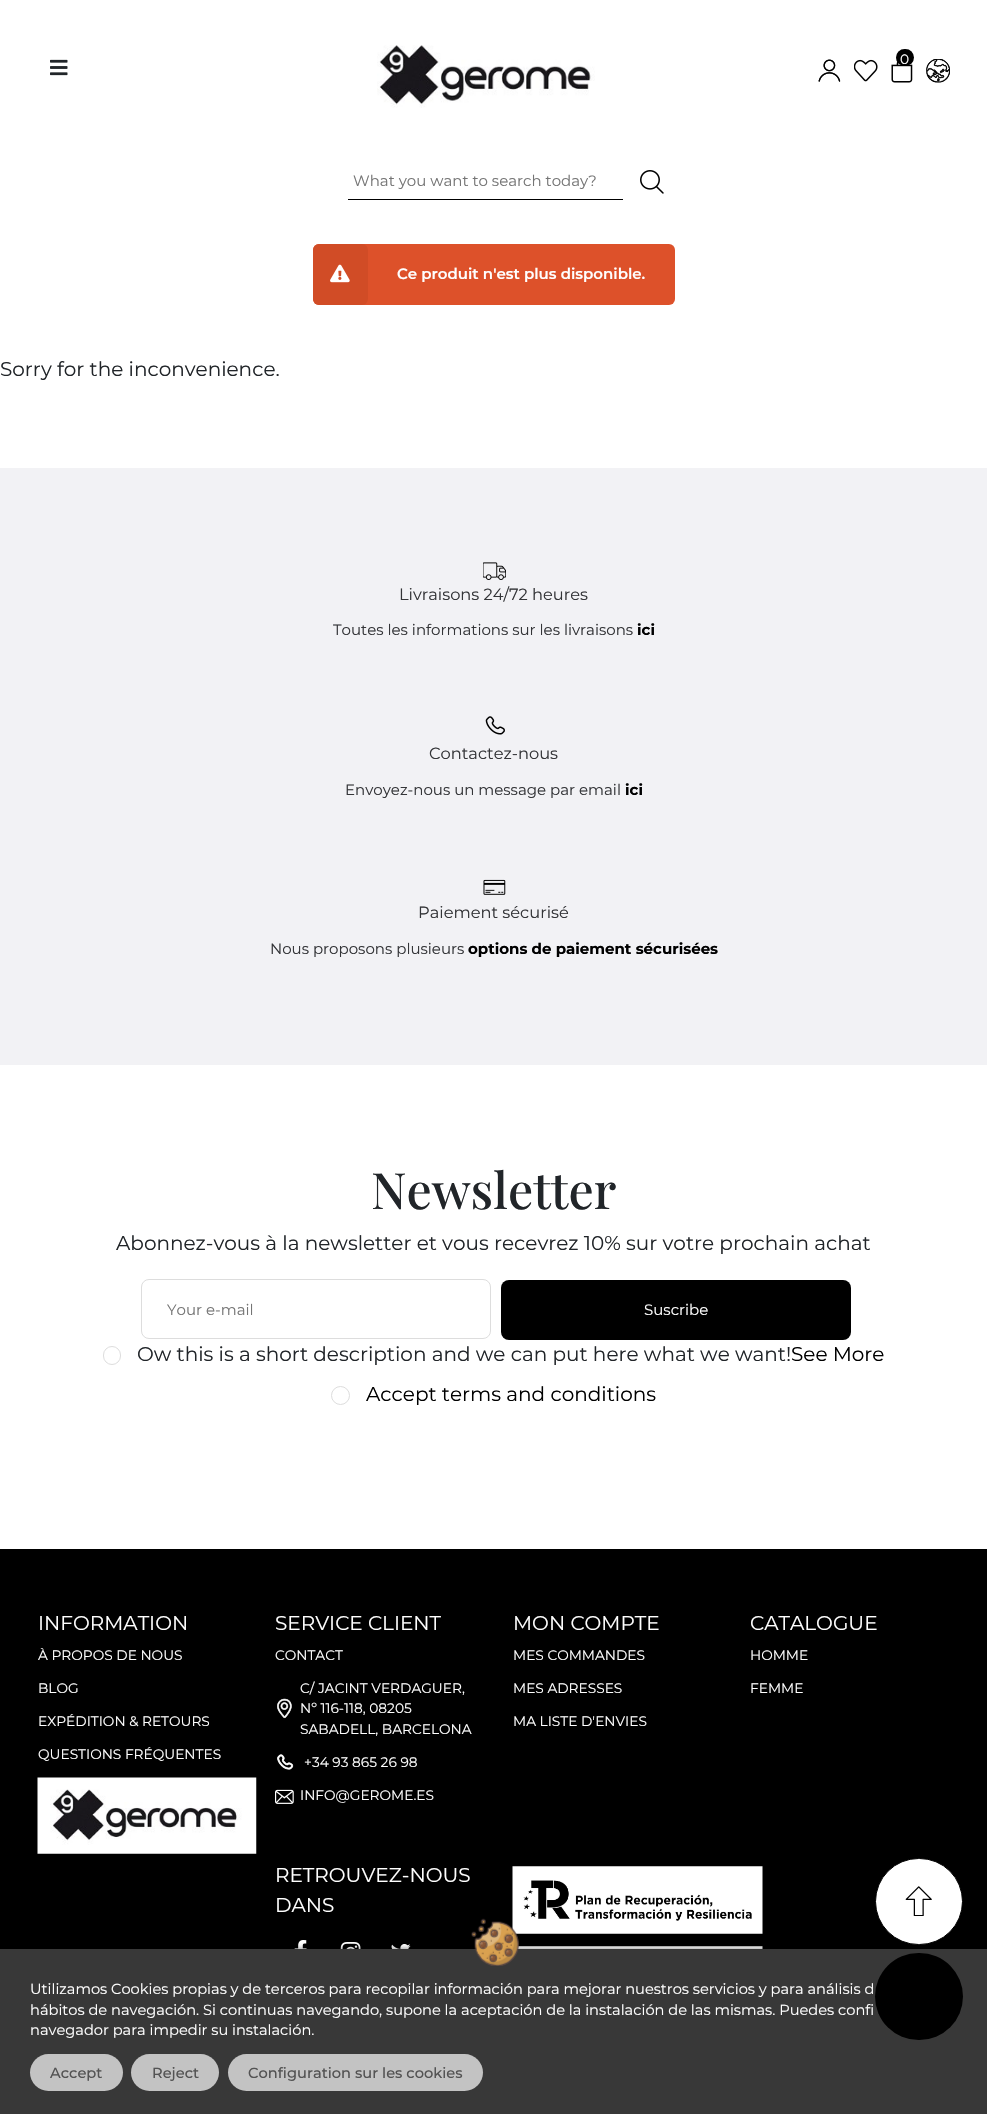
void draw(SkCanvas* canvas) {
  SkPaint paint;
  paint.setAntiAlias(true);
  auto face = [&](const char* family, int weight, float size, bool italic = false) {
    SkFontStyle style(weight, SkFontStyle::kNormal_Width,
      italic ? SkFontStyle::kItalic_Slant : SkFontStyle::kUpright_Slant);
    SkFont result(fontMgr->matchFamilyStyle(family, style), size);
    result.setSubpixel(true);
    return result;
  };
  auto paste = [&](const char* path, float x, float y, float w, float h) {
    auto image = SkImages::DeferredFromEncodedData(SkData::MakeFromFileName(path));
    canvas->drawImageRect(image, SkRect::MakeXYWH(x, y, w, h), SkSamplingOptions());
  };
  canvas->clear(0xffffffff);
  paste("img/1.png", 50, 59, 18, 17);
  paste("img/2.png", 377, 45, 218, 63);
  paste("img/3.png", 818, 59, 23, 23);
  paste("img/4.png", 854, 59, 24, 23);
  paste("img/5.png", 891, 61, 22, 22);
  paint.setColor(0xff000000);
  canvas->drawRoundRect(SkRect::MakeXYWH(896, 49, 18, 17), 8.5f, 8.5f, paint);
  paste("img/6.png", 926, 59, 24, 24);
  canvas->drawRect(SkRect::MakeXYWH(348, 199, 275, 1), paint);
  paste("img/7.png", 640, 170, 24, 24);
  canvas->drawRect(SkRect::MakeXYWH(0, 1549, 987, 400), paint);
  paste("img/16.png", 294, 1940, 13, 9);
  paste("img/17.png", 340, 1942, 21, 7);
  paste("img/18.png", 391, 1944, 20, 5);
  paste("img/20.png", 516, 1946, 247, 3);
  paint.setColor(0xffffffff);
  canvas->drawRoundRect(SkRect::MakeXYWH(875.5f, 1858.5f, 87, 86), 43, 43, paint);
  paint.setStroke(true);
  paint.setStrokeWidth(1);
  paint.setColor(0xff000000);
  canvas->drawRoundRect(SkRect::MakeXYWH(875.5f, 1858.5f, 87, 86), 43, 43, paint);
  paint.setStroke(false);
  paint.setColor(0x80000000);
  paint.setMaskFilter(SkMaskFilter::MakeBlur(kNormal_SkBlurStyle, 3));
  canvas->drawRect(SkRect::MakeXYWH(0, 1949, 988, 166), paint);
  paint.setMaskFilter(nullptr);
  paint.setColor(0xff383838);
  canvas->drawRect(SkRect::MakeXYWH(0, 1949, 987, 165), paint);
  paint.setColor(0xff000000);
  canvas->drawRoundRect(SkRect::MakeXYWH(875, 1953, 88, 87), 43.5f, 43.5f, paint);
  paint.setColor(0xffdd512a);
  canvas->drawRoundRect(SkRect::MakeXYWH(313, 244, 362, 61), 6, 6, paint);
  paint.setColor(0xffd14c26);
  canvas->drawRoundRect(SkRect::MakeXYWH(313, 244, 55, 61), 6, 6, paint);
  paste("img/8.png", 330, 264, 20, 19);
  paint.setColor(0xfff2f2f5);
  canvas->drawRect(SkRect::MakeXYWH(0, 468, 987, 597), paint);
  paste("img/9.png", 483, 562, 23, 18);
  paste("img/10.png", 485, 716, 20, 19);
  paste("img/11.png", 483, 879, 23, 16);
  paint.setStroke(true);
  paint.setColor(0xffdddddd);
  canvas->drawRoundRect(SkRect::MakeXYWH(141.5f, 1279.5f, 349, 59), 7.5f, 7.5f, paint);
  paint.setStroke(false);
  paint.setColor(0xff000000);
  canvas->drawRoundRect(SkRect::MakeXYWH(501, 1280, 350, 60), 8, 8, paint);
  paint.setStroke(true);
  paint.setColor(0xffdddddd);
  canvas->drawRoundRect(SkRect::MakeXYWH(103.5f, 1346.5f, 17, 18), 8.5f, 8.5f, paint);
  canvas->drawCircle(340.5f, 1395.5f, 9, paint);
  paste("img/12.png", 37, 1777, 220, 77);
  paste("img/13.png", 277, 1698, 15, 21);
  paste("img/14.png", 277, 1754, 17, 16);
  paste("img/15.png", 275, 1789, 19, 15);
  paste("img/19.png", 512, 1866, 251, 68);
  paste("img/21.png", 905, 1886, 27, 30);
  paste("img/22.png", 471, 1918, 48, 48);
  paint.setStroke(false);
  paint.setColor(0xffc3c3c3);
  canvas->drawRoundRect(SkRect::MakeXYWH(30, 2054, 93, 37), 18.5f, 18.5f, paint);
  canvas->drawRoundRect(SkRect::MakeXYWH(131, 2054, 88, 37), 18.5f, 18.5f, paint);
  canvas->drawRoundRect(SkRect::MakeXYWH(228, 2054, 255, 37), 18.5f, 18.5f, paint);
  auto f0 = face("Montserrat", 400, 13.75f);
  paint.setColor(0xffffffff);
  canvas->drawString("0", 900, 64, f0, paint);
  auto f1 = face("Montserrat", 400, 15);
  paint.setColor(0xff757575);
  canvas->drawString("What you want to search today?", 353, 186, f1, paint);
  auto f2 = face("Montserrat", 600, 15);
  paint.setColor(0xffffffff);
  canvas->drawString("Ce produit n'est plus disponible.", 397, 279, f2, paint);
  auto f3 = face("Montserrat", 400, 20);
  paint.setColor(0xff212529);
  canvas->drawString("Sorry for the inconvenience.", 0, 376, f3, paint);
  auto f4 = face("Montserrat", 400, 16.25f);
  paint.setColor(0xff343538);
  canvas->drawString("Livraisons 24/72 heures", 399, 600, f4, paint);
  canvas->drawString("Toutes les informations sur les livraisons", 333, 635, f1, paint);
  auto f5 = face("Montserrat", 700, 15);
  paint.setColor(0xff000000);
  canvas->drawString("ici", 637, 635, f5, paint);
  paint.setColor(0xff343538);
  canvas->drawString("Contactez-nous", 429, 759, f4, paint);
  canvas->drawString("Envoyez-nous un message par email", 345, 795, f1, paint);
  paint.setColor(0xff000000);
  canvas->drawString("ici", 625, 795, f5, paint);
  paint.setColor(0xff343538);
  canvas->drawString("Paiement sécurisé", 418, 918, f4, paint);
  canvas->drawString("Nous proposons plusieurs", 270, 954, f1, paint);
  paint.setColor(0xff000000);
  canvas->drawString("options de paiement sécurisées", 468, 954, f5, paint);
  auto f6 = face("Playfair Display", 500, 50);
  paint.setColor(0xff212529);
  canvas->drawString("Newsletter", 371, 1209, f6, paint);
  canvas->drawString("Abonnez-vous à la newsletter et vous recevrez 10% sur votre prochain achat", 116, 1250, f3, paint);
  paint.setColor(0xff757575);
  canvas->drawString("Your e-mail", 167, 1315, f1, paint);
  paint.setColor(0xffffffff);
  canvas->drawString("Suscribe", 644, 1315, f1, paint);
  paint.setColor(0xff212529);
  canvas->drawString("Ow this is a short description and we can put here what we want!", 137, 1361, f3, paint);
  paint.setColor(0xff000000);
  canvas->drawString("See More", 791, 1361, f3, paint);
  canvas->drawString("Accept terms and conditions", 366, 1401, f3, paint);
  paint.setColor(0xffffffff);
  canvas->drawString("INFORMATION", 38, 1630, f3, paint);
  {
    const struct { const char* s; float x, y; } items[] = {
      {"À PROPOS DE NOUS", 38, 1660},
      {"BLOG", 38, 1693},
      {"EXPÉDITION & RETOURS", 38, 1726},
      {"QUESTIONS FRÉQUENTES", 38, 1759},
    };
    for (auto [s, x, y] : items) {
      canvas->drawString(s, x, y, f0, paint);
    }
  }
  canvas->drawString("SERVICE CLIENT", 275, 1630, f3, paint);
  {
    const struct { const char* s; float x, y; } items[] = {
      {"CONTACT", 275, 1660},
      {"C/ JACINT VERDAGUER,", 300, 1693},
      {"Nº 116-118, 08205", 300, 1713},
      {"SABADELL, BARCELONA", 300, 1734},
      {"+34 93 865 26 98", 304, 1767},
      {"INFO@GEROME.ES", 300, 1800},
    };
    for (auto [s, x, y] : items) {
      canvas->drawString(s, x, y, f0, paint);
    }
  }
  canvas->drawString("MON COMPTE", 513, 1630, f3, paint);
  {
    const struct { const char* s; float x, y; } items[] = {
      {"MES COMMANDES", 513, 1660},
      {"MES ADRESSES", 513, 1693},
      {"MA LISTE D'ENVIES", 513, 1726},
    };
    for (auto [s, x, y] : items) {
      canvas->drawString(s, x, y, f0, paint);
    }
  }
  canvas->drawString("CATALOGUE", 750, 1630, f3, paint);
  canvas->drawString("HOMME", 750, 1660, f0, paint);
  canvas->drawString("FEMME", 750, 1693, f0, paint);
  canvas->drawString("RETROUVEZ-NOUS", 275, 1882, f3, paint);
  canvas->drawString("DANS", 275, 1912, f3, paint);
  auto f7 = face("Montserrat", 400, 14.62f);
  {
    const struct { const char* s; float x, y; } items[] = {
      {"Utilizamos Cookies propias y de terceros para recopilar información para mejorar nuestros servicios y para análisis d", 30, 1994},
      {"hábitos de navegación. Si continuas navegando, supone la aceptación de la instalación de las mismas. Puedes confi", 30, 2015},
      {"navegador para impedir su instalación.", 30, 2035},
    };
    for (auto [s, x, y] : items) {
      canvas->drawString(s, x, y, f7, paint);
    }
  }
  auto f8 = face("Montserrat", 500, 14.62f);
  paint.setColor(0xff535353);
  {
    const struct { const char* s; float x, y; } items[] = {
      {"Accept", 50, 2078},
      {"Reject", 152, 2078},
      {"Configuration sur les cookies", 248, 2078},
    };
    for (auto [s, x, y] : items) {
      canvas->drawString(s, x, y, f8, paint);
    }
  }
}
